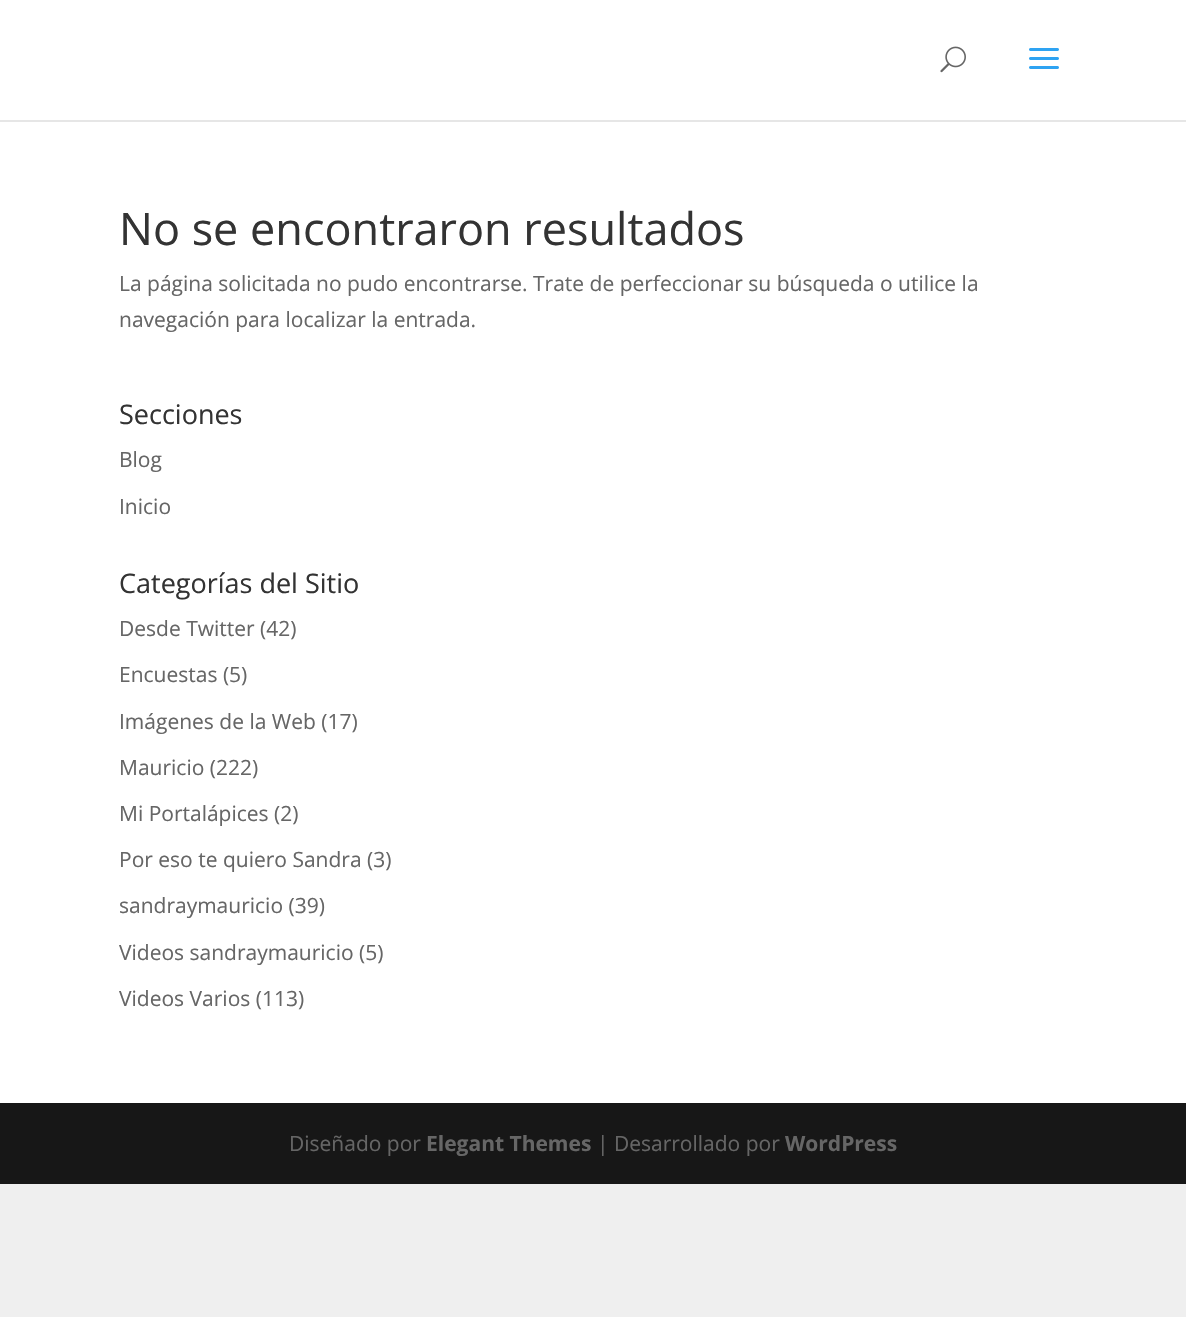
void draw(SkCanvas* canvas) {
  SkPaint paint;
  paint.setAntiAlias(true);
  auto face = [&](const char* family, int weight, float size, bool italic = false) {
    SkFontStyle style(weight, SkFontStyle::kNormal_Width,
      italic ? SkFontStyle::kItalic_Slant : SkFontStyle::kUpright_Slant);
    SkFont result(fontMgr->matchFamilyStyle(family, style), size);
    result.setSubpixel(true);
    return result;
  };
  auto paste = [&](const char* path, float x, float y, float w, float h) {
    auto image = SkImages::DeferredFromEncodedData(SkData::MakeFromFileName(path));
    canvas->drawImageRect(image, SkRect::MakeXYWH(x, y, w, h), SkSamplingOptions());
  };
  auto shape = [&](const char* data, bool evenOdd = false) {
    SkPath result = *SkParsePath::FromSVGString(data);
    if (evenOdd) result.setFillType(SkPathFillType::kEvenOdd);
    return result;
  };
  canvas->clear(0xffefefef);
  paint.setColor(0xffe6e6e6);
  canvas->drawPath(shape("M0 120V122H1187V2H1186V120Z"), paint);
  paint.setColor(0xffffffff);
  canvas->drawRect(SkRect::MakeXYWH(0, 0, 1186, 120), paint);
  paste("img/1.png", 940, 46, 26, 27);
  paste("img/2.png", 1029, 48, 30, 21);
  canvas->drawRect(SkRect::MakeXYWH(0, 122, 1186, 981), paint);
  paint.setColor(0xff171717);
  canvas->drawRect(SkRect::MakeXYWH(0, 1103, 1186, 81), paint);
  auto f0 = face("Open Sans", 400, 45);
  paint.setColor(0xff333333);
  canvas->drawString("No se encontraron resultados", 119, 245, f0, paint);
  auto f1 = face("Open Sans", 400, 21);
  paint.setColor(0xff666666);
  canvas->drawString("La página solicitada no pudo encontrarse. Trate de perfeccionar su búsqueda o utilice la", 119, 291, f1, paint);
  canvas->drawString("navegación para localizar la entrada.", 119, 327, f1, paint);
  auto f2 = face("Open Sans", 400, 27);
  paint.setColor(0xff333333);
  canvas->drawString("Secciones", 119, 424, f2, paint);
  paint.setColor(0xff666666);
  canvas->drawString("Blog", 119, 467, f1, paint);
  canvas->drawString("Inicio", 119, 514, f1, paint);
  paint.setColor(0xff333333);
  canvas->drawString("Categorías del Sitio", 119, 593, f2, paint);
  paint.setColor(0xff666666);
  {
    const struct { const char* s; float x, y; } items[] = {
      {"Desde Twitter (42)", 119, 636},
      {"Encuestas (5)", 119, 682},
      {"Imágenes de la Web (17)", 119, 729},
      {"Mauricio (222)", 119, 775},
      {"Mi Portalápices (2)", 119, 821},
      {"Por eso te quiero Sandra (3)", 119, 867},
      {"sandraymauricio (39)", 119, 913},
      {"Videos sandraymauricio (5)", 119, 960},
      {"Videos Varios (113)", 119, 1006},
      {"Diseñado por", 289, 1151},
    };
    for (auto [s, x, y] : items) {
      canvas->drawString(s, x, y, f1, paint);
    }
  }
  auto f3 = face("Open Sans", 700, 21);
  canvas->drawString("Elegant Themes", 426, 1151, f3, paint);
  canvas->drawString("| Desarrollado por", 597, 1151, f1, paint);
  canvas->drawString("WordPress", 785, 1151, f3, paint);
}
